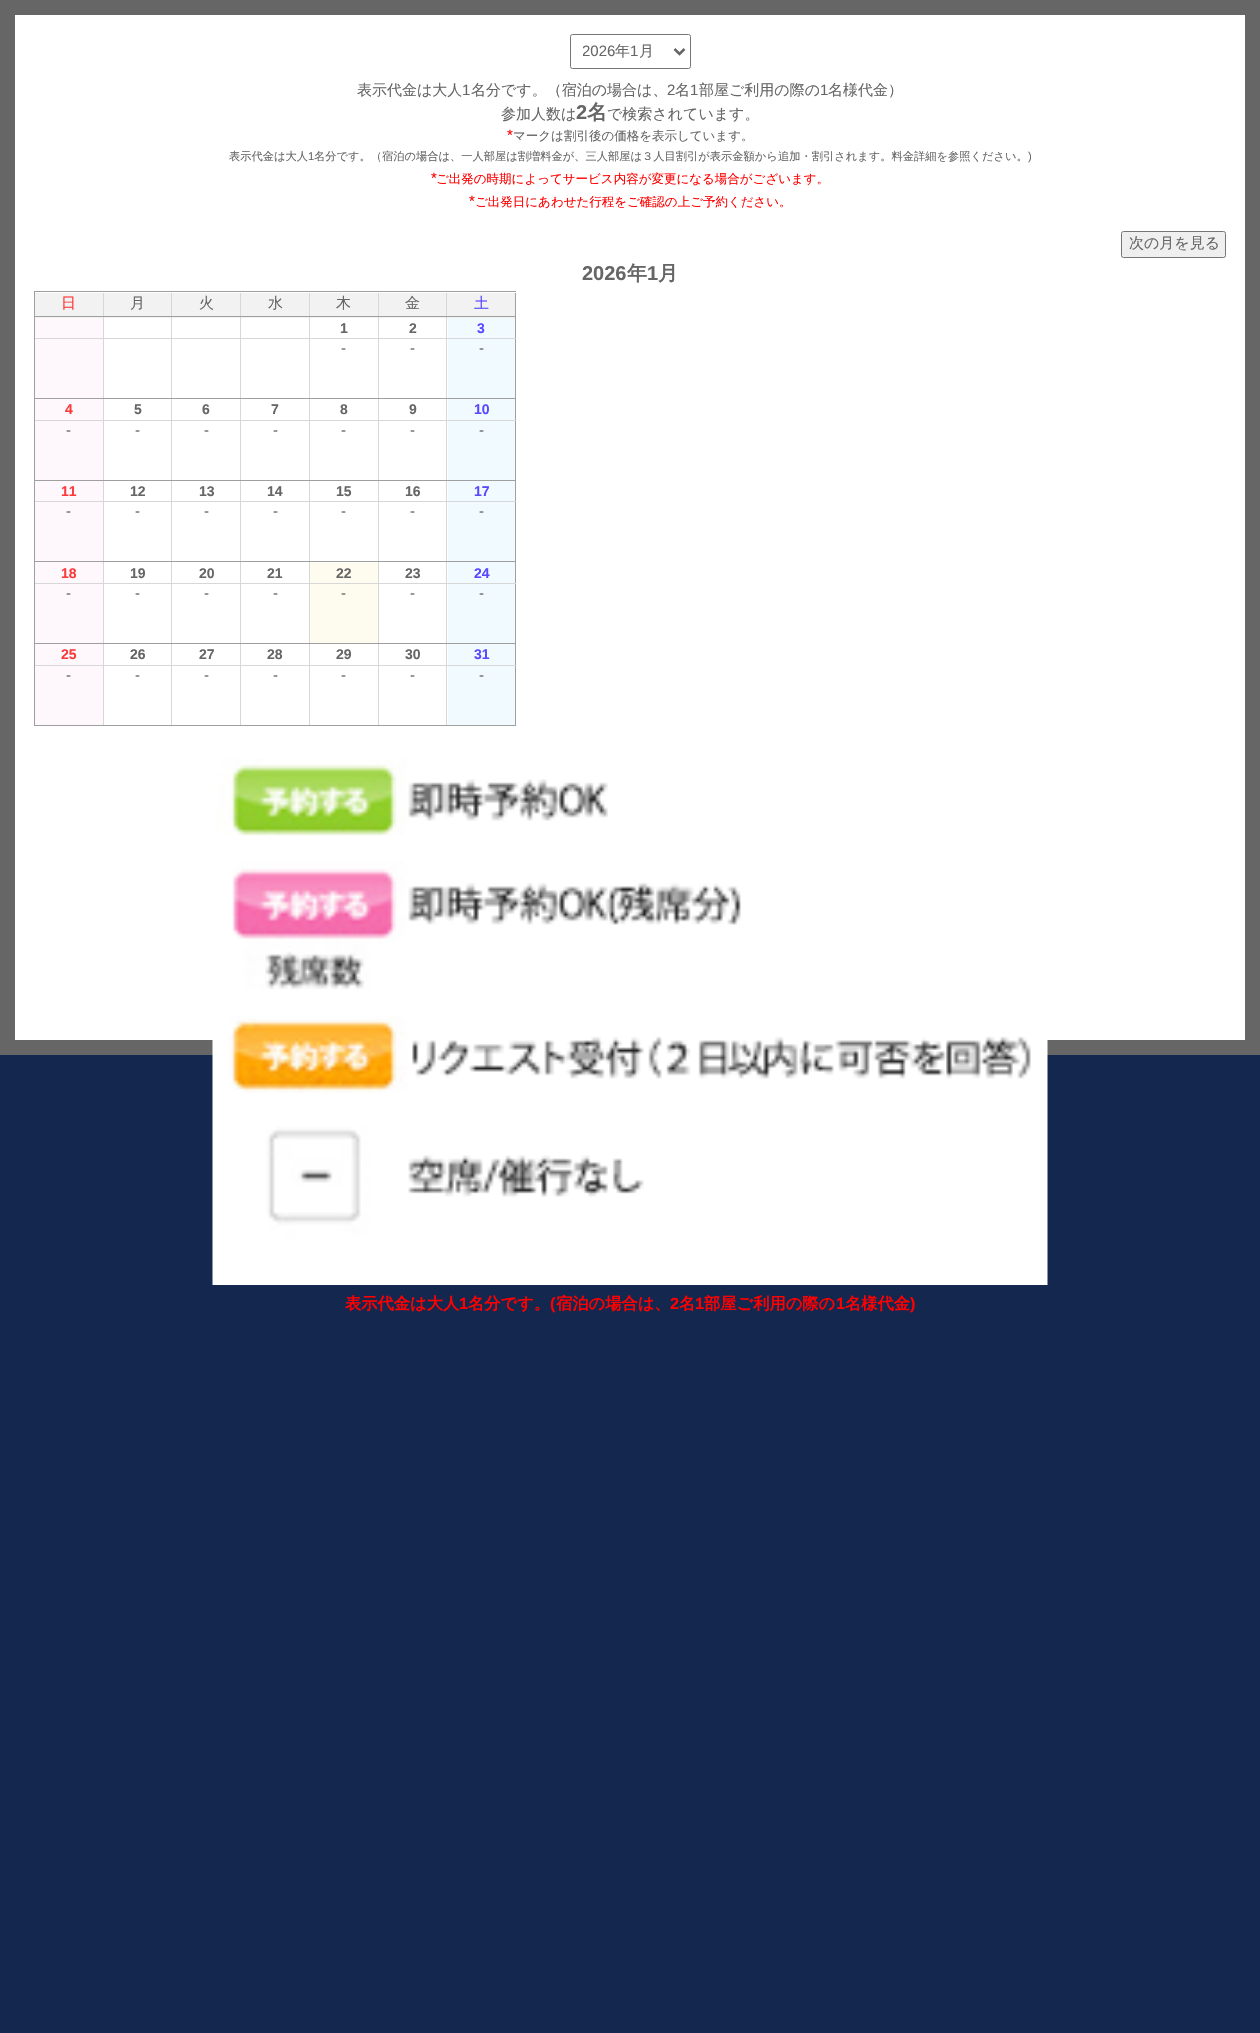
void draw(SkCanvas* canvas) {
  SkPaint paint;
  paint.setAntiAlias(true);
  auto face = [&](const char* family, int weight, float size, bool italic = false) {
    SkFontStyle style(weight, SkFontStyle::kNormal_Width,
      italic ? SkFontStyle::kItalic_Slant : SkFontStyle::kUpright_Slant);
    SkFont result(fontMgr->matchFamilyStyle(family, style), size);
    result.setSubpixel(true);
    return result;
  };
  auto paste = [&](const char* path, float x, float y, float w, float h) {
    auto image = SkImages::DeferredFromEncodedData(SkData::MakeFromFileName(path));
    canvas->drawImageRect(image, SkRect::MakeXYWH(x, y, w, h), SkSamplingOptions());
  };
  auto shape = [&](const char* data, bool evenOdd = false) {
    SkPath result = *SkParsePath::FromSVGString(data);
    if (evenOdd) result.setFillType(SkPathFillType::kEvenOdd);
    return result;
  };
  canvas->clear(0xff14274e);
  paint.setColor(0xffffffff);
  canvas->drawRect(SkRect::MakeXYWH(7.5f, 7.5f, 1245, 1040), paint);
  paint.setStroke(true);
  paint.setStrokeWidth(15);
  paint.setColor(0xff666666);
  canvas->drawRect(SkRect::MakeXYWH(7.5f, 7.5f, 1245, 1040), paint);
  paint.setStrokeWidth(1);
  paint.setColor(0xff767676);
  canvas->drawRoundRect(SkRect::MakeXYWH(570.5f, 34.5f, 120, 34), 2, 2, paint);
  paint.setStrokeWidth(2.5f);
  paint.setColor(0xff666666);
  canvas->drawPath(shape("M674.5 49L679.5 54L684.5 49"), paint);
  paint.setStroke(false);
  paint.setColor(0xffefefef);
  canvas->drawRoundRect(SkRect::MakeXYWH(1121.5f, 231.5f, 104, 26), 2, 2, paint);
  paint.setStroke(true);
  paint.setStrokeWidth(1);
  paint.setColor(0xff767676);
  canvas->drawRoundRect(SkRect::MakeXYWH(1121.5f, 231.5f, 104, 26), 2, 2, paint);
  paint.setStroke(false);
  {
    const struct { float x, y, w, h; SkColor color; } items[] = {
      {34, 291, 482, 1, 0xff9f9f9f},
      {34, 291, 1, 435, 0xff9f9f9f},
      {35, 293, 68, 25, 0xfff2f2f2},
      {103, 293, 1, 433, 0xffd7d7d7},
      {35, 316, 69, 1, 0xff9f9f9f},
      {104, 293, 136, 25, 0xfff2f2f2},
      {171, 293, 1, 433, 0xffd7d7d7},
      {104, 316, 69, 1, 0xff9f9f9f},
      {240, 293, 1, 433, 0xffd7d7d7},
      {173, 316, 68, 1, 0xff9f9f9f},
      {241, 293, 68, 25, 0xfff2f2f2},
      {309, 293, 1, 433, 0xffd7d7d7},
      {241, 316, 69, 1, 0xff9f9f9f},
      {310, 293, 68, 25, 0xfff2f2f2},
      {378, 293, 1, 433, 0xffd7d7d7},
      {310, 316, 69, 1, 0xff9f9f9f},
      {379, 293, 136, 25, 0xfff2f2f2},
      {446, 293, 1, 433, 0xffd7d7d7},
      {379, 316, 69, 1, 0xff9f9f9f},
      {515, 293, 1, 433, 0xff9f9f9f},
      {448, 316, 68, 1, 0xff9f9f9f},
      {35, 318, 68, 20, 0xfffef8fc},
      {35, 338, 481, 1, 0xffd7d7d7},
      {448, 318, 67, 20, 0xfff1faff},
      {35, 339, 68, 59, 0xfffef8fc},
      {35, 398, 481, 1, 0xff9f9f9f},
      {448, 339, 67, 59, 0xfff1faff},
      {35, 399, 68, 21, 0xfffef8fc},
      {35, 420, 481, 1, 0xffd7d7d7},
      {448, 399, 67, 21, 0xfff1faff},
      {35, 421, 68, 59, 0xfffef8fc},
      {35, 480, 481, 1, 0xff9f9f9f},
      {448, 421, 67, 59, 0xfff1faff},
      {35, 481, 68, 102, 0xfffef8fc},
      {35, 501, 413, 1, 0xffd7d7d7},
      {448, 481, 67, 102, 0xfff1faff},
      {448, 501, 68, 1, 0xffd7d7d7},
      {35, 561, 481, 1, 0xff9f9f9f},
      {35, 583, 481, 1, 0xffd7d7d7},
      {310, 563, 68, 20, 0xfffefcef},
      {35, 584, 68, 59, 0xfffef8fc},
      {35, 643, 481, 1, 0xff9f9f9f},
      {310, 584, 68, 59, 0xfffefcef},
      {448, 584, 67, 59, 0xfff1faff},
      {35, 644, 68, 21, 0xfffef8fc},
      {35, 665, 481, 1, 0xffd7d7d7},
      {448, 644, 67, 21, 0xfff1faff},
      {35, 666, 68, 59, 0xfffef8fc},
      {35, 725, 481, 1, 0xff9f9f9f},
      {448, 666, 67, 59, 0xfff1faff},
    };
    for (auto [x, y, w, h, color] : items) {
      paint.setColor(color);
      canvas->drawRect(SkRect::MakeXYWH(x, y, w, h), paint);
    }
  }
  paste("img/1.png", 212, 758, 836, 527);
  canvas->save();
  canvas->clipRect(SkRect::MakeXYWH(583, 41, 81, 20));
  auto f0 = face("Liberation Sans", 400, 15);
  paint.setColor(0xff666666);
  canvas->drawString("2026", 582, 56, f0, paint);
  canvas->restore();
  auto f1 = face("WenQuanYi Zen Hei", 500, 15);
  canvas->drawString("年", 615, 56, f1, paint);
  canvas->drawString("1", 630, 56, f0, paint);
  canvas->drawString("月", 639, 56, f1, paint);
  canvas->drawString("表示代金は大人", 357, 95, f1, paint);
  canvas->drawString("1", 462, 95, f0, paint);
  canvas->drawString("名分です。（宿泊の場合は、", 471, 95, f1, paint);
  canvas->drawString("2", 667, 95, f0, paint);
  canvas->drawString("名", 675, 95, f1, paint);
  canvas->drawString("1", 690, 95, f0, paint);
  canvas->drawString("部屋ご利用の際の", 699, 95, f1, paint);
  canvas->drawString("1", 820, 95, f0, paint);
  canvas->drawString("名様代金）", 828, 95, f1, paint);
  canvas->drawString("参加人数は", 501, 119, f1, paint);
  auto f2 = face("Liberation Sans", 700, 20);
  canvas->drawString("2", 576, 119, f2, paint);
  auto f3 = face("WenQuanYi Zen Hei", 700, 20);
  canvas->drawString("名", 587, 119, f3, paint);
  canvas->drawString("で検索されています。", 607, 119, f1, paint);
  paint.setColor(0xffff0000);
  canvas->drawString("*", 507, 140, f0, paint);
  auto f4 = face("WenQuanYi Zen Hei", 500, 12.5f);
  paint.setColor(0xff666666);
  canvas->drawString("マークは割引後の価格を表示しています。", 513, 140, f4, paint);
  auto f5 = face("WenQuanYi Zen Hei", 500, 11.25f);
  canvas->drawString("表示代金は大人", 229, 160, f5, paint);
  auto f6 = face("Liberation Sans", 400, 11.25f);
  canvas->drawString("1", 308, 160, f6, paint);
  canvas->drawString("名分です。（宿泊の場合は、一人部屋は割増料金が、三人部屋は３人目割引が表示金額から追加・割引されます。料金詳細を参照ください。", 314, 160, f5, paint);
  canvas->drawString(")", 1028, 160, f6, paint);
  paint.setColor(0xffff0000);
  canvas->drawString("*", 431, 183, f0, paint);
  canvas->drawString("ご出発の時期によってサービス内容が変更になる場合がございます。", 436, 183, f4, paint);
  canvas->drawString("*", 469, 206, f0, paint);
  canvas->drawString("ご出発日にあわせた行程をご確認の上ご予約ください。", 475, 206, f4, paint);
  paint.setColor(0xff666666);
  canvas->drawString("次の月を見る", 1129, 248, f1, paint);
  canvas->drawString("2026", 582, 280, f2, paint);
  canvas->drawString("年", 627, 280, f3, paint);
  canvas->drawString("1", 647, 280, f2, paint);
  canvas->drawString("月", 658, 280, f3, paint);
  paint.setColor(0xfffb3a3b);
  canvas->drawString("日", 61, 308, f1, paint);
  paint.setColor(0xff666666);
  {
    const struct { const char* s; float x, y; } items[] = {
      {"月", 130, 308},
      {"火", 199, 308},
      {"水", 268, 308},
      {"木", 336, 308},
      {"金", 405, 308},
    };
    for (auto [s, x, y] : items) {
      canvas->drawString(s, x, y, f1, paint);
    }
  }
  paint.setColor(0xff5649ff);
  canvas->drawString("土", 474, 308, f1, paint);
  auto f7 = face("Liberation Sans", 700, 14);
  paint.setColor(0xff666666);
  canvas->drawString("1", 340, 333, f7, paint);
  canvas->drawString("2", 409, 333, f7, paint);
  paint.setColor(0xff5649ff);
  canvas->drawString("3", 477, 333, f7, paint);
  paint.setColor(0xff666666);
  {
    const struct { const char* s; float x, y; } items[] = {
      {"-", 341, 353},
      {"-", 410, 353},
      {"-", 479, 353},
    };
    for (auto [s, x, y] : items) {
      canvas->drawString(s, x, y, f0, paint);
    }
  }
  paint.setColor(0xfffb3a3b);
  canvas->drawString("4", 65, 414, f7, paint);
  paint.setColor(0xff666666);
  {
    const struct { const char* s; float x, y; } items[] = {
      {"5", 134, 414},
      {"6", 202, 414},
      {"7", 271, 414},
      {"8", 340, 414},
      {"9", 409, 414},
    };
    for (auto [s, x, y] : items) {
      canvas->drawString(s, x, y, f7, paint);
    }
  }
  paint.setColor(0xff5649ff);
  canvas->drawString("10", 474, 414, f7, paint);
  paint.setColor(0xff666666);
  {
    const struct { const char* s; float x, y; } items[] = {
      {"-", 66, 435},
      {"-", 135, 435},
      {"-", 204, 435},
      {"-", 273, 435},
      {"-", 341, 435},
      {"-", 410, 435},
      {"-", 479, 435},
    };
    for (auto [s, x, y] : items) {
      canvas->drawString(s, x, y, f0, paint);
    }
  }
  paint.setColor(0xfffb3a3b);
  canvas->drawString("11", 61, 496, f7, paint);
  paint.setColor(0xff666666);
  {
    const struct { const char* s; float x, y; } items[] = {
      {"12", 130, 496},
      {"13", 199, 496},
      {"14", 267, 496},
      {"15", 336, 496},
      {"16", 405, 496},
    };
    for (auto [s, x, y] : items) {
      canvas->drawString(s, x, y, f7, paint);
    }
  }
  paint.setColor(0xff5649ff);
  canvas->drawString("17", 474, 496, f7, paint);
  paint.setColor(0xff666666);
  {
    const struct { const char* s; float x, y; } items[] = {
      {"-", 66, 516},
      {"-", 135, 516},
      {"-", 204, 516},
      {"-", 273, 516},
      {"-", 341, 516},
      {"-", 410, 516},
      {"-", 479, 516},
    };
    for (auto [s, x, y] : items) {
      canvas->drawString(s, x, y, f0, paint);
    }
  }
  paint.setColor(0xfffb3a3b);
  canvas->drawString("18", 61, 578, f7, paint);
  paint.setColor(0xff666666);
  {
    const struct { const char* s; float x, y; } items[] = {
      {"19", 130, 578},
      {"20", 199, 578},
      {"21", 267, 578},
      {"22", 336, 578},
      {"23", 405, 578},
    };
    for (auto [s, x, y] : items) {
      canvas->drawString(s, x, y, f7, paint);
    }
  }
  paint.setColor(0xff5649ff);
  canvas->drawString("24", 474, 578, f7, paint);
  paint.setColor(0xff666666);
  {
    const struct { const char* s; float x, y; } items[] = {
      {"-", 66, 598},
      {"-", 135, 598},
      {"-", 204, 598},
      {"-", 273, 598},
      {"-", 341, 598},
      {"-", 410, 598},
      {"-", 479, 598},
    };
    for (auto [s, x, y] : items) {
      canvas->drawString(s, x, y, f0, paint);
    }
  }
  paint.setColor(0xfffb3a3b);
  canvas->drawString("25", 61, 659, f7, paint);
  paint.setColor(0xff666666);
  {
    const struct { const char* s; float x, y; } items[] = {
      {"26", 130, 659},
      {"27", 199, 659},
      {"28", 267, 659},
      {"29", 336, 659},
      {"30", 405, 659},
    };
    for (auto [s, x, y] : items) {
      canvas->drawString(s, x, y, f7, paint);
    }
  }
  paint.setColor(0xff5649ff);
  canvas->drawString("31", 474, 659, f7, paint);
  paint.setColor(0xff666666);
  {
    const struct { const char* s; float x, y; } items[] = {
      {"-", 66, 680},
      {"-", 135, 680},
      {"-", 204, 680},
      {"-", 273, 680},
      {"-", 341, 680},
      {"-", 410, 680},
      {"-", 479, 680},
    };
    for (auto [s, x, y] : items) {
      canvas->drawString(s, x, y, f0, paint);
    }
  }
  auto f8 = face("WenQuanYi Zen Hei", 700, 16.25f);
  paint.setColor(0xffff0000);
  canvas->drawString("表示代金は大人", 345, 1309, f8, paint);
  auto f9 = face("Liberation Sans", 700, 16.25f);
  canvas->drawString("1", 459, 1309, f9, paint);
  canvas->drawString("名分です。", 468, 1309, f8, paint);
  canvas->drawString("(", 550, 1309, f9, paint);
  canvas->drawString("宿泊の場合は、", 556, 1309, f8, paint);
  canvas->drawString("2", 670, 1309, f9, paint);
  canvas->drawString("名", 679, 1309, f8, paint);
  canvas->drawString("1", 695, 1309, f9, paint);
  canvas->drawString("部屋ご利用の際の", 704, 1309, f8, paint);
  canvas->drawString("1", 836, 1309, f9, paint);
  canvas->drawString("名様代金", 845, 1309, f8, paint);
  canvas->drawString(")", 910, 1309, f9, paint);
}
